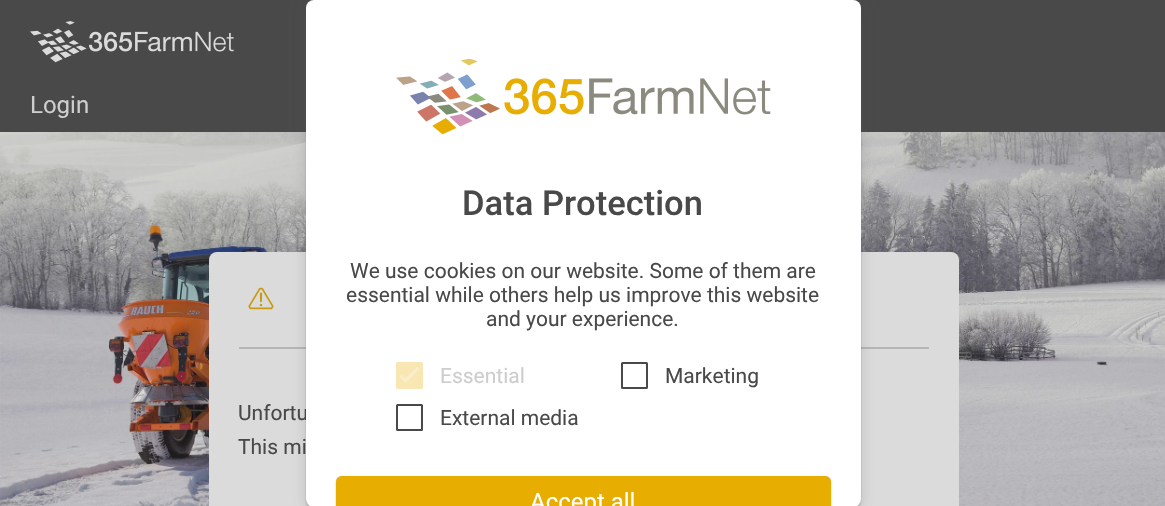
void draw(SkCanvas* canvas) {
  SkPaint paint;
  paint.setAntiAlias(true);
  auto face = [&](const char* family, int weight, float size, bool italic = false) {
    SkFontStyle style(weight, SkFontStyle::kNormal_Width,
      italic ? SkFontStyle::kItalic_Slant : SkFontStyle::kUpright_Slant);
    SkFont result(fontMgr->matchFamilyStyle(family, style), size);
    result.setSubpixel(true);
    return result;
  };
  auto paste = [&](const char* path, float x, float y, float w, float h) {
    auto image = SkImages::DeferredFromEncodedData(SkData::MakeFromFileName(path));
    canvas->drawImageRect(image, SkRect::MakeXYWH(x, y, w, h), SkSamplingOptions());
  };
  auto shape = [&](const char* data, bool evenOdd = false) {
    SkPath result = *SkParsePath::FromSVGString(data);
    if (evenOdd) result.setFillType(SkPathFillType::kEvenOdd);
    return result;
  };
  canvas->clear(0xffffffff);
  paint.setColor(0xff494949);
  canvas->drawRect(SkRect::MakeXYWH(0, 0, 1165, 132), paint);
  paste("img/1.png", 30, 21, 204, 42);
  paste("img/2.png", 0, 132, 1165, 374);
  paint.setColor(0xffdbdbdb);
  canvas->drawRoundRect(SkRect::MakeXYWH(209, 252, 750, 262), 8, 8, paint);
  paste("img/3.png", 248, 287, 26, 23);
  paint.setColor(0xffb5b5b5);
  canvas->drawRect(SkRect::MakeXYWH(239, 347, 690, 2), paint);
  paint.setColor(0x33494949);
  paint.setMaskFilter(SkMaskFilter::MakeBlur(kNormal_SkBlurStyle, 7.5f));
  canvas->drawRoundRect(SkRect::MakeXYWH(306, 3, 555, 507), 8, 8, paint);
  paint.setMaskFilter(nullptr);
  paint.setColor(0x4d494949);
  paint.setMaskFilter(SkMaskFilter::MakeBlur(kNormal_SkBlurStyle, 1));
  canvas->drawRoundRect(SkRect::MakeXYWH(306, 2, 555, 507), 8, 8, paint);
  paint.setMaskFilter(nullptr);
  auto f0 = face("Roboto", 400, 24);
  paint.setColor(0xffcdcdcd);
  canvas->drawString("Login", 30, 113, f0, paint);
  auto f1 = face("Roboto", 400, 21);
  paint.setColor(0xff494949);
  canvas->drawString("Unfortu", 238, 420, f1, paint);
  canvas->drawString("This mi", 238, 454, f1, paint);
  paint.setColor(0xffffffff);
  canvas->drawRoundRect(SkRect::MakeXYWH(306, 0, 555, 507), 8, 8, paint);
  paste("img/4.png", 396, 59, 375, 76);
  auto f2 = face("Roboto", 500, 34.5f);
  paint.setColor(0xff494949);
  canvas->drawString("Data Protection", 462, 215, f2, paint);
  {
    const struct { const char* s; float x, y; } items[] = {
      {"We use cookies on our website. Some of them are", 350, 278},
      {"essential while others help us improve this website", 346, 302},
      {"and your experience.", 486, 326},
    };
    for (auto [s, x, y] : items) {
      canvas->drawString(s, x, y, f1, paint);
    }
  }
  paint.setColor(0xfff8e6b3);
  canvas->drawRoundRect(SkRect::MakeXYWH(397, 363, 25, 25), 0.5f, 0.5f, paint);
  paint.setStroke(true);
  paint.setStrokeWidth(2);
  canvas->drawRoundRect(SkRect::MakeXYWH(397, 363, 25, 25), 0.5f, 0.5f, paint);
  paste("img/5.png", 399, 367, 21, 16);
  paint.setStroke(false);
  paint.setColor(0xffcdcdcd);
  canvas->drawString("Essential", 440, 383, f1, paint);
  paint.setStroke(true);
  paint.setColor(0xff494949);
  canvas->drawRoundRect(SkRect::MakeXYWH(622, 363, 25, 25), 0.5f, 0.5f, paint);
  paint.setStroke(false);
  canvas->drawString("Marketing", 665, 383, f1, paint);
  paint.setStroke(true);
  canvas->drawRoundRect(SkRect::MakeXYWH(397, 405, 25, 25), 0.5f, 0.5f, paint);
  paint.setStroke(false);
  canvas->drawString("External media", 440, 425, f1, paint);
  paint.setColor(0x59494949);
  paint.setMaskFilter(SkMaskFilter::MakeBlur(kNormal_SkBlurStyle, 1));
  canvas->drawRoundRect(SkRect::MakeXYWH(336, 477, 495, 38), 6, 6, paint);
  paint.setMaskFilter(nullptr);
  paint.setColor(0xffe7ad00);
  canvas->drawPath(shape("M342 476H825C828.5 476 831 478.5 831 482V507H336V482C336 478.5 338.5 476 342 476Z"), paint);
  paint.setColor(0xffffffff);
  canvas->drawString("Accept all", 530, 510, f0, paint);
}
